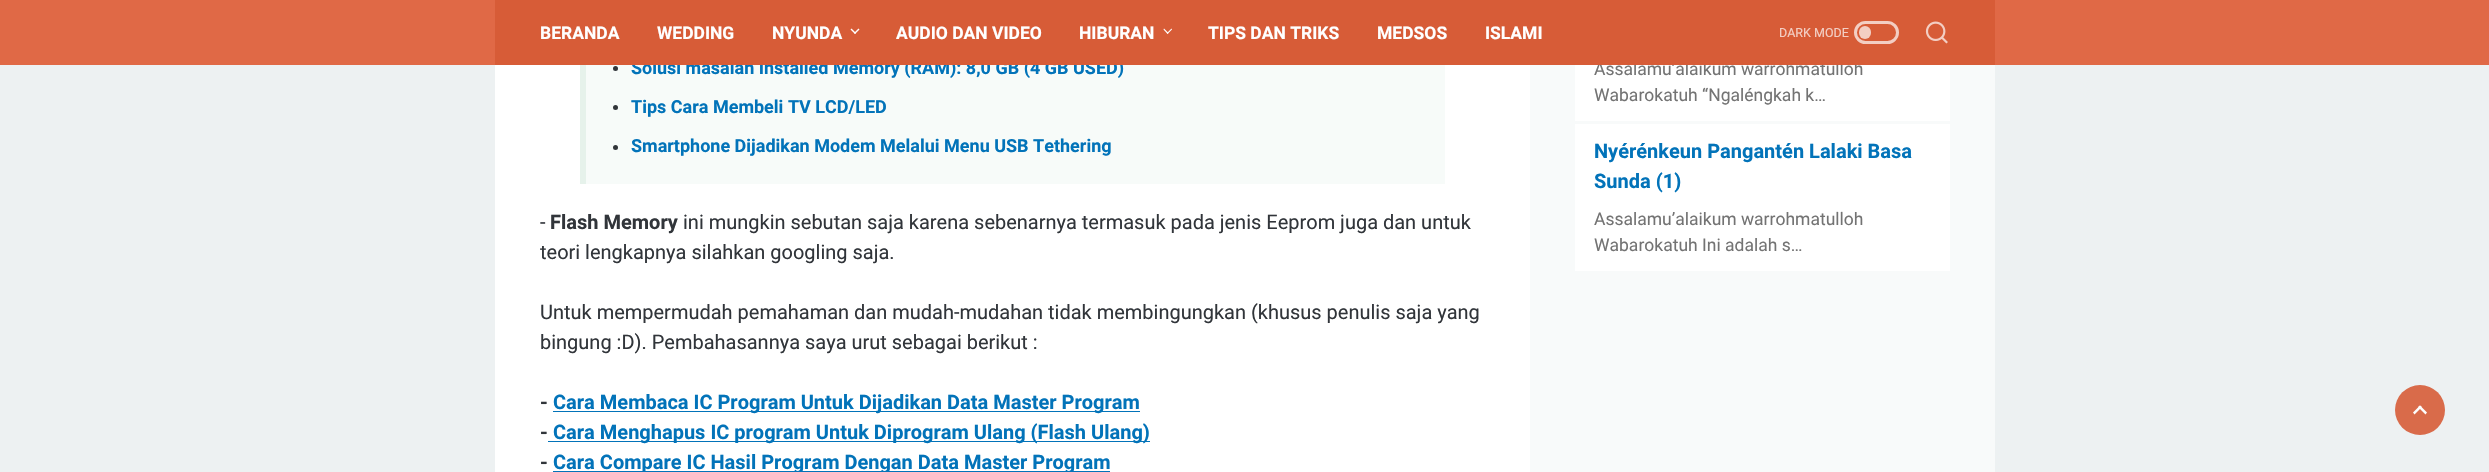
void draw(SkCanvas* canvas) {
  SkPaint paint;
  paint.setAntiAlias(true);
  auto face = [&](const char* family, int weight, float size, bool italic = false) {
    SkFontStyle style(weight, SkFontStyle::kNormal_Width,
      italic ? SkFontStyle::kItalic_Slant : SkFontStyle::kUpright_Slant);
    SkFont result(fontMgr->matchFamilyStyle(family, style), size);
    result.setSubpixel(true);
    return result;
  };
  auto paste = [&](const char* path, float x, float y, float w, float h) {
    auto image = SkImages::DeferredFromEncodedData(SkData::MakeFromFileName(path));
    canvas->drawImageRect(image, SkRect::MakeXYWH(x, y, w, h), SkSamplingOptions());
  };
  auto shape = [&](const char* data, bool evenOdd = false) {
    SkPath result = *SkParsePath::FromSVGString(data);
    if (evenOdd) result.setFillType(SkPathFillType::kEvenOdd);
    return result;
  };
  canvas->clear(0xffedf1f2);
  {
    const struct { float x, y, w, h; SkColor color; } items[] = {
      {495, 65, 1035, 407, 0xffffffff},
      {586, 65, 859, 119, 0xfff7fbf9},
      {580, 65, 6, 119, 0xffe6f2eb},
    };
    for (auto [x, y, w, h, color] : items) {
      paint.setColor(color);
      canvas->drawRect(SkRect::MakeXYWH(x, y, w, h), paint);
    }
  }
  paint.setColor(0xff31353a);
  canvas->drawCircle(615.5f, 68.5f, 2.5f, paint);
  canvas->drawCircle(615.5f, 107.5f, 2.5f, paint);
  canvas->drawCircle(615.5f, 147.5f, 2.5f, paint);
  {
    const struct { float x, y, w, h; SkColor color; } items[] = {
      {553, 411, 587, 1, 0xff0273b9},
      {548, 441, 602, 1, 0xff0273b9},
      {553, 471, 557, 1, 0xff0273b9},
      {1530, 65, 465, 407, 0xfff8fafa},
      {1575, 65, 375, 56, 0xffffffff},
      {1575, 124, 375, 147, 0xffffffff},
    };
    for (auto [x, y, w, h, color] : items) {
      paint.setColor(color);
      canvas->drawRect(SkRect::MakeXYWH(x, y, w, h), paint);
    }
  }
  paint.setColor(0xffd96b4a);
  canvas->drawCircle(2420, 410, 25, paint);
  paint.setColor(0xfffdfefe);
  canvas->drawPath(shape("M2413 412.5L2420 405.5L2422 407L2414.5 414.5Z"), paint);
  canvas->drawPath(shape("M2418 407L2420 405.5L2427 412.5L2425.5 414.5Z"), paint);
  auto f0 = face("Roboto", 700, 18);
  paint.setColor(0xff0273b9);
  {
    const struct { const char* s; float x, y; } items[] = {
      {"Solusi masalah Installed Memory (RAM): 8,0 GB (4 GB USED)", 631, 74},
      {"Tips Cara Membeli TV LCD/LED", 631, 113},
      {"Smartphone Dijadikan Modem Melalui Menu USB Tethering", 631, 152},
    };
    for (auto [s, x, y] : items) {
      canvas->drawString(s, x, y, f0, paint);
    }
  }
  auto f1 = face("Roboto", 400, 20);
  paint.setColor(0xff31353a);
  canvas->drawString("-", 540, 229, f1, paint);
  auto f2 = face("Roboto", 700, 20);
  canvas->drawString("Flash Memory", 550, 229, f2, paint);
  {
    const struct { const char* s; float x, y; } items[] = {
      {"ini mungkin sebutan saja karena sebenarnya termasuk pada jenis Eeprom juga dan untuk", 683, 229},
      {"teori lengkapnya silahkan googling saja.", 540, 259},
      {"Untuk mempermudah pemahaman dan mudah-mudahan tidak membingungkan (khusus penulis saja yang", 540, 319},
      {"bingung :D). Pembahasannya saya urut sebagai berikut :", 540, 349},
    };
    for (auto [s, x, y] : items) {
      canvas->drawString(s, x, y, f1, paint);
    }
  }
  canvas->drawString("-", 540, 409, f2, paint);
  paint.setColor(0xff0273b9);
  canvas->drawString("Cara Membaca IC Program Untuk Dijadikan Data Master Program", 553, 409, f2, paint);
  paint.setColor(0xff31353a);
  canvas->drawString("-", 540, 439, f2, paint);
  paint.setColor(0xff0273b9);
  canvas->drawString("Cara Menghapus IC program Untuk Diprogram Ulang (Flash Ulang)", 553, 439, f2, paint);
  paint.setColor(0xff31353a);
  canvas->drawString("-", 540, 469, f2, paint);
  paint.setColor(0xff0273b9);
  canvas->drawString("Cara Compare IC Hasil Program Dengan Data Master Program", 553, 469, f2, paint);
  auto f3 = face("Roboto", 400, 17.5f);
  paint.setColor(0xff737373);
  canvas->drawString("Assalamu’alaikum warrohmatulloh", 1594, 75, f3, paint);
  paint.setColor(0xffe06946);
  canvas->drawRect(SkRect::MakeXYWH(0, 0, 2489, 65), paint);
  paint.setColor(0xffd75c37);
  canvas->drawRect(SkRect::MakeXYWH(495, 0, 1500, 65), paint);
  paint.setStroke(true);
  paint.setStrokeWidth(3);
  paint.setColor(0xfff3cec3);
  canvas->drawRoundRect(SkRect::MakeXYWH(1855.5f, 22.5f, 42, 20), 10, 10, paint);
  paint.setStroke(false);
  canvas->drawRoundRect(SkRect::MakeXYWH(1859, 26, 12, 13), 6, 6, paint);
  auto f4 = face("Roboto", 400, 12.5f);
  canvas->drawString("DARK MODE", 1779, 37, f4, paint);
  paste("img/1.png", 1925, 21, 23, 23);
  auto f5 = face("Roboto", 700, 17.5f);
  paint.setColor(0xffffffff);
  {
    const struct { const char* s; float x, y; } items[] = {
      {"ISLAMI", 1485, 39},
      {"MEDSOS", 1377, 39},
      {"TIPS DAN TRIKS", 1208, 39},
    };
    for (auto [s, x, y] : items) {
      canvas->drawString(s, x, y, f5, paint);
    }
  }
  canvas->drawPath(shape("M1167 33L1171.5 28.5L1172 29.5L1167.5 34Z"), paint);
  canvas->drawPath(shape("M1163.5 29.5L1164 28.5L1168.5 33L1167.5 34Z"), paint);
  canvas->drawString("HIBURAN", 1079, 39, f5, paint);
  canvas->drawString("AUDIO DAN VIDEO", 896, 39, f5, paint);
  canvas->drawPath(shape("M854 33L858.5 28.5L859.5 29.5L855 34Z"), paint);
  canvas->drawPath(shape("M850.5 29.5L851.5 28.5L856 33L855 34Z"), paint);
  {
    const struct { const char* s; float x, y; } items[] = {
      {"NYUNDA", 772, 39},
      {"WEDDING", 657, 39},
      {"BERANDA", 540, 39},
    };
    for (auto [s, x, y] : items) {
      canvas->drawString(s, x, y, f5, paint);
    }
  }
  paint.setColor(0xff737373);
  canvas->drawString("Wabarokatuh “Ngaléngkah k…", 1594, 101, f3, paint);
  paint.setColor(0xff0273b9);
  canvas->drawString("Nyérénkeun Pangantén Lalaki Basa", 1594, 158, f2, paint);
  canvas->drawString("Sunda (1)", 1594, 188, f2, paint);
  paint.setColor(0xff737373);
  canvas->drawString("Assalamu’alaikum warrohmatulloh", 1594, 225, f3, paint);
  canvas->drawString("Wabarokatuh Ini adalah s…", 1594, 251, f3, paint);
}
